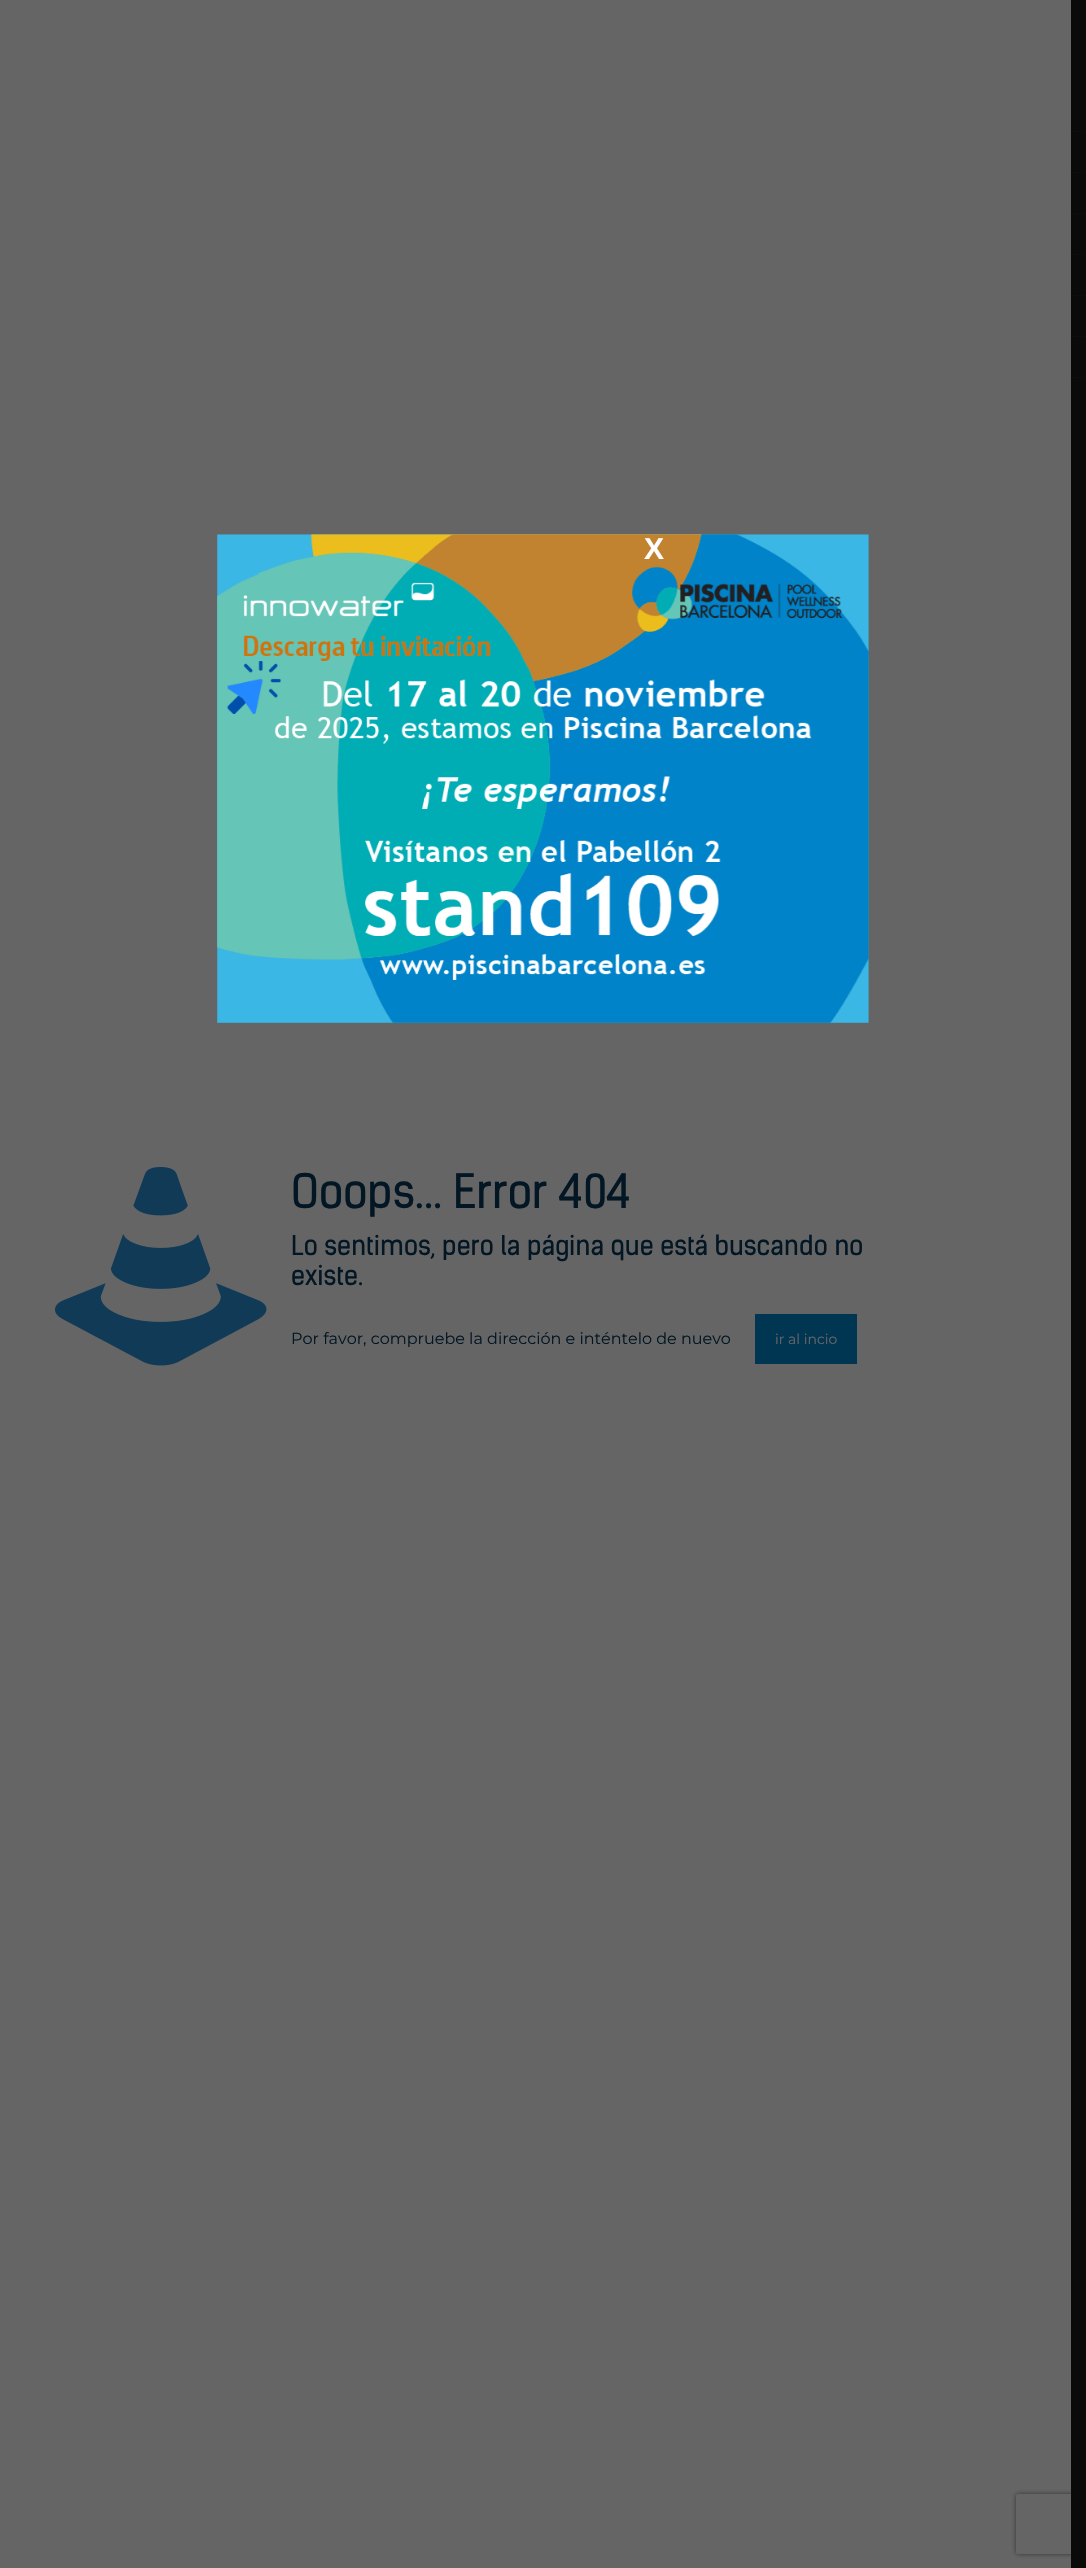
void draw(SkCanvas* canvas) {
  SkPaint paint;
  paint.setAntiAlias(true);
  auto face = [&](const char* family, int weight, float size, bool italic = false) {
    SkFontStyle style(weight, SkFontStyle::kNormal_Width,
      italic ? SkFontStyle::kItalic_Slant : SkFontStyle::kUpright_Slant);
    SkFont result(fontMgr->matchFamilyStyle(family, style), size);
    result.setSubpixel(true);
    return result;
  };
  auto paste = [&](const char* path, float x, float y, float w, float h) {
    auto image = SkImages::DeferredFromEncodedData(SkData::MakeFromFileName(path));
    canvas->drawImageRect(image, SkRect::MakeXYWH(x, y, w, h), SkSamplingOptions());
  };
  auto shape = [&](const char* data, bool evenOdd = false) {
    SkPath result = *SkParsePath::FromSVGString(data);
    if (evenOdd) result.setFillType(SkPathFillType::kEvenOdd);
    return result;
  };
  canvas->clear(0xff656565);
  paste("img/1.png", 217, 534, 652, 489);
  canvas->save();
  canvas->clipPath(shape("M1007 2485H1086V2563H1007ZM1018 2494H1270C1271 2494 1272 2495 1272 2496V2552C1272 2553 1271 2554 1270 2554H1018C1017 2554 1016 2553 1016 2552V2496C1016 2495 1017 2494 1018 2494Z", true), true);
  paint.setColor(0xff333333);
  paint.setMaskFilter(SkMaskFilter::MakeBlur(kNormal_SkBlurStyle, 2.5f));
  canvas->drawRoundRect(SkRect::MakeXYWH(1016, 2494, 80, 60), 2, 2, paint);
  paint.setMaskFilter(nullptr);
  canvas->restore();
  {
    const struct { float x, y, w, h; SkColor color; } items[] = {
      {1071, 0, 15, 2568, 0xff0a0a0a},
      {1071, 131, 15, 1, 0xff0d0d0d},
      {1071, 172, 15, 1, 0xff0d0d0d},
      {1071, 213, 15, 1, 0xff0d0d0d},
      {1071, 254, 15, 1, 0xff0d0d0d},
      {1071, 295, 15, 1, 0xff0d0d0d},
      {1071, 336, 15, 1, 0xff0d0d0d},
      {1071, 377, 15, 1, 0xff0d0d0d},
    };
    for (auto [x, y, w, h, color] : items) {
      paint.setColor(color);
      canvas->drawRect(SkRect::MakeXYWH(x, y, w, h), paint);
    }
  }
  paste("img/2.png", 55, 1167, 212, 199);
  paint.setColor(0xff003652);
  canvas->drawRect(SkRect::MakeXYWH(755, 1314, 102, 50), paint);
  auto f0 = face("Liberation Sans", 700, 30);
  paint.setColor(0xffffffff);
  canvas->drawString("X", 644, 559, f0, paint);
  auto f1 = face("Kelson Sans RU", 400, 45);
  paint.setColor(0xff031624);
  canvas->drawString("Ooops... Error 404", 291, 1208, f1, paint);
  auto f2 = face("Kelson Sans RU", 400, 26);
  canvas->drawString("Lo sentimos, pero la página que está buscando no", 291, 1255, f2, paint);
  canvas->drawString("existe.", 291, 1285, f2, paint);
  auto f3 = face("Montserrat", 400, 16);
  canvas->drawString("Por favor, compruebe la dirección e inténtelo de nuevo", 291, 1344, f3, paint);
  auto f4 = face("Montserrat", 400, 14);
  paint.setColor(0xff666666);
  canvas->drawString("ir al incio", 775, 1344, f4, paint);
}
